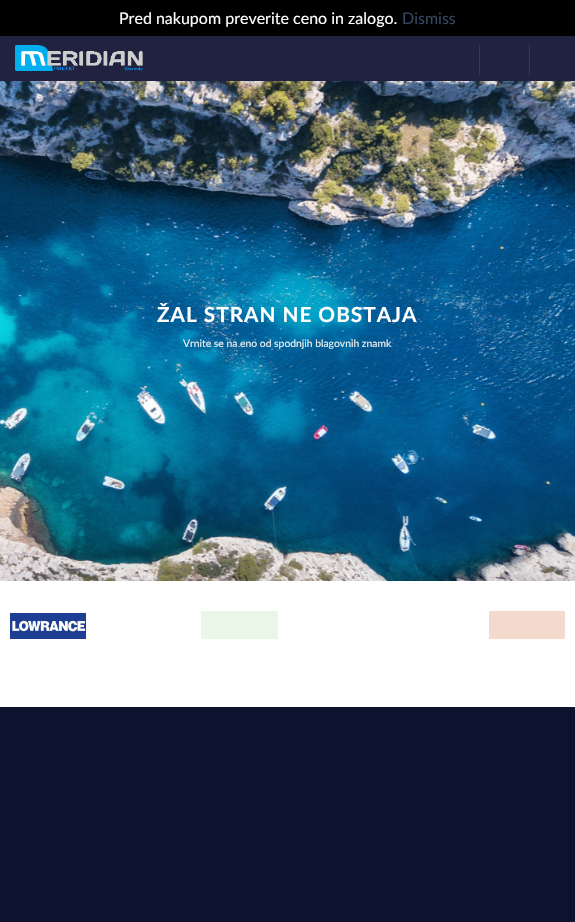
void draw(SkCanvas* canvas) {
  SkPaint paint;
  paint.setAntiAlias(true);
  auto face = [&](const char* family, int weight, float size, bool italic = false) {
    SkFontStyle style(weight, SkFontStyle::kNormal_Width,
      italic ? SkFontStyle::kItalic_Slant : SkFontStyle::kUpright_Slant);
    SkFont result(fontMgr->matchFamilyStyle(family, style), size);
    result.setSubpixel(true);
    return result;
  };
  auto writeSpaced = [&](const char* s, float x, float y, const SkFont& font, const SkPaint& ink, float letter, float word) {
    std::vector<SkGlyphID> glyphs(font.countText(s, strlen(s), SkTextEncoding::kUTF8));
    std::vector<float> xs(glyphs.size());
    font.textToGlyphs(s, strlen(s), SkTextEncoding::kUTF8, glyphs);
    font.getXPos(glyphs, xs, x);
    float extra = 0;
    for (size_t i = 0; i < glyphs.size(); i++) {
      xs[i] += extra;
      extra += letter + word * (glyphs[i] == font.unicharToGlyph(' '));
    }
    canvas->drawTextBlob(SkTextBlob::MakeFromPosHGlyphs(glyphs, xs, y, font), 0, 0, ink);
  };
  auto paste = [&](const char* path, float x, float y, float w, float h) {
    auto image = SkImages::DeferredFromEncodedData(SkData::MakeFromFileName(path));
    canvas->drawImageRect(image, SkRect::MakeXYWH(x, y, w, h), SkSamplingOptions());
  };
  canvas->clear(0xff000000);
  paint.setColor(0xffffffff);
  canvas->drawRect(SkRect::MakeXYWH(0, 581, 575, 126), paint);
  paint.setColor(0xff212240);
  canvas->drawRect(SkRect::MakeXYWH(0, 36, 575, 45), paint);
  paste("img/1.png", 15, 45, 128, 26);
  paint.setColor(0xff373853);
  canvas->drawRect(SkRect::MakeXYWH(479, 45, 1, 30), paint);
  canvas->drawRect(SkRect::MakeXYWH(529, 45, 1, 30), paint);
  paste("img/2.png", 0, 81, 575, 500);
  paste("img/3.png", 10, 613, 76, 26);
  {
    const struct { float x, y, w, h; SkColor color; } items[] = {
      {201, 611, 77, 28, 0xffeaf7e8},
      {489, 611, 76, 28, 0xfff4dacd},
      {0, 707, 575, 215, 0xff0d122e},
    };
    for (auto [x, y, w, h, color] : items) {
      paint.setColor(color);
      canvas->drawRect(SkRect::MakeXYWH(x, y, w, h), paint);
    }
  }
  auto f0 = face("Lato", 400, 16);
  paint.setColor(0xffffffff);
  canvas->drawString("Pred nakupom preverite ceno in zalogo.", 119, 24, f0, paint);
  paint.setColor(0xff334862);
  canvas->drawString("Dismiss", 402, 24, f0, paint);
  auto f1 = face("Lato", 700, 20.75f);
  paint.setColor(0xffffffff);
  writeSpaced("ŽAL STRAN NE OBSTAJA", 157, 322, f1, paint, 1, 0);
  auto f2 = face("Lato", 400, 10.35f);
  paint.setColor(0xfff1f1f1);
  canvas->drawString("Vrnite se na eno od spodnjih blagovnih znamk", 183, 347, f2, paint);
}
